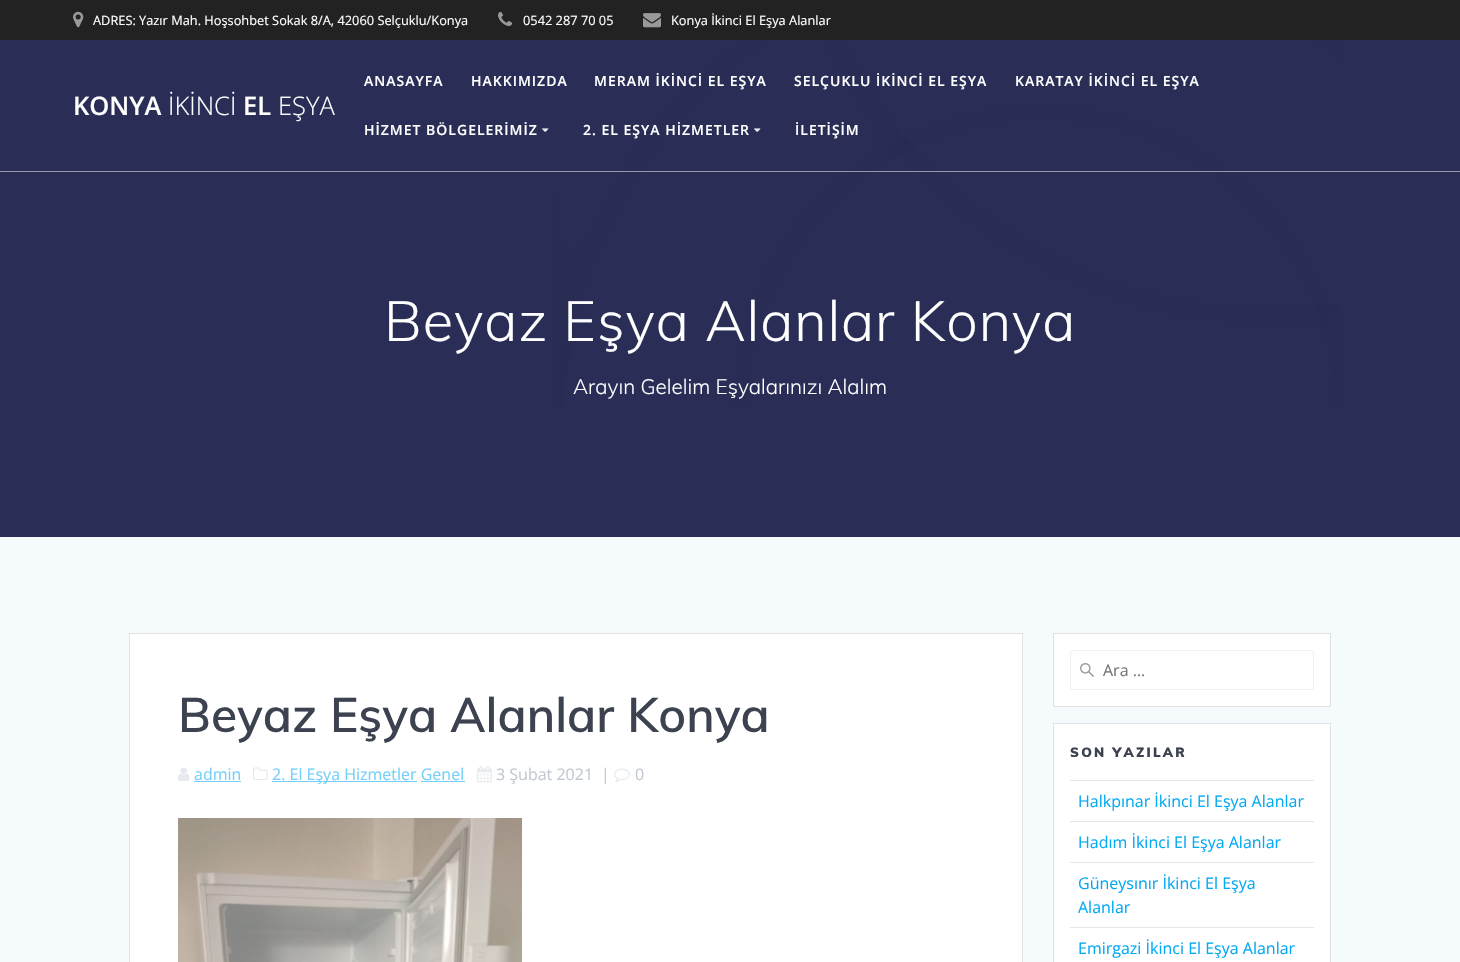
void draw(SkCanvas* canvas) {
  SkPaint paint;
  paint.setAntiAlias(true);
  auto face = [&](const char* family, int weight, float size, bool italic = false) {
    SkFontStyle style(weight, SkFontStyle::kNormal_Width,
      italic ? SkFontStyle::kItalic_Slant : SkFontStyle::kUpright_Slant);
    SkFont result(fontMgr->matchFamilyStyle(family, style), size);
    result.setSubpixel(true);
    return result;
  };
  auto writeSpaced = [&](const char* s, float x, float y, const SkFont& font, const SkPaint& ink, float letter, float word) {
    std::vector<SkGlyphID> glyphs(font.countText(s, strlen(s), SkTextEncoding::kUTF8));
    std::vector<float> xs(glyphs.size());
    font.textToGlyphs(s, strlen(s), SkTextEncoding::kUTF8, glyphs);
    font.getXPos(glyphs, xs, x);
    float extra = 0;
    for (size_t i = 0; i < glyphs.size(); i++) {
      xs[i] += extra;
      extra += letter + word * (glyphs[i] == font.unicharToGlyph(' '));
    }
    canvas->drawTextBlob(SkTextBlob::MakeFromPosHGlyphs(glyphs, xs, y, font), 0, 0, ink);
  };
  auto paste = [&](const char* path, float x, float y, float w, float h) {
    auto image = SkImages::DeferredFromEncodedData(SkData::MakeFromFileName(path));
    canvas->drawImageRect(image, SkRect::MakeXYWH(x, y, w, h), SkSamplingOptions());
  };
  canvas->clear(0xff2a2e57);
  paint.setColor(0xff222222);
  canvas->drawRect(SkRect::MakeXYWH(0, 0, 1460, 40), paint);
  paste("img/1.png", 73, 11, 11, 17);
  paste("img/2.png", 498, 11, 15, 15);
  paste("img/3.png", 643, 13, 18, 15);
  paste("img/5.png", 553, 40, 788, 368);
  paint.setColor(0x80ffffff);
  canvas->drawRect(SkRect::MakeXYWH(0, 171, 1460, 1), paint);
  paste("img/4.png", 542, 128, 7, 4);
  paste("img/4.png", 754, 128, 7, 4);
  paint.setColor(0xfff5fafd);
  canvas->drawRect(SkRect::MakeXYWH(0, 537, 1460, 425), paint);
  paint.setColor(0xffffffff);
  canvas->drawRect(SkRect::MakeXYWH(129.5f, 633.5f, 893, 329), paint);
  paint.setStroke(true);
  paint.setStrokeWidth(1);
  paint.setColor(0xffe0e1e1);
  canvas->drawRect(SkRect::MakeXYWH(129.5f, 633.5f, 893, 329), paint);
  paste("img/6.png", 178, 767, 12, 14);
  paint.setStroke(false);
  paint.setColor(0xff74d0f9);
  canvas->drawRect(SkRect::MakeXYWH(194, 781, 47, 1), paint);
  paste("img/7.png", 253, 767, 15, 13);
  canvas->drawRect(SkRect::MakeXYWH(272, 781, 145, 1), paint);
  paste("img/8.png", 477, 766, 15, 17);
  paste("img/9.png", 614, 768, 16, 15);
  canvas->drawRect(SkRect::MakeXYWH(421, 781, 44, 1), paint);
  paste("img/10.png", 178, 818, 344, 144);
  paint.setColor(0xffffffff);
  canvas->drawRect(SkRect::MakeXYWH(1053.5f, 633.5f, 277, 73), paint);
  paint.setStroke(true);
  paint.setColor(0xffe0e1e1);
  canvas->drawRect(SkRect::MakeXYWH(1053.5f, 633.5f, 277, 73), paint);
  paste("img/11.png", 1080, 663, 14, 14);
  paint.setColor(0xfff1f1f1);
  canvas->drawRoundRect(SkRect::MakeXYWH(1070.5f, 650.5f, 243, 39), 2.5f, 2.5f, paint);
  paint.setStroke(false);
  paint.setColor(0xffffffff);
  canvas->drawRect(SkRect::MakeXYWH(1053.5f, 723.5f, 277, 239), paint);
  paint.setStroke(true);
  paint.setColor(0xffe0e1e1);
  canvas->drawRect(SkRect::MakeXYWH(1053.5f, 723.5f, 277, 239), paint);
  paint.setStroke(false);
  {
    const struct { float x, y, w, h; SkColor color; } items[] = {
      {1070, 780, 244, 1, 0xffe6e6e6},
      {1070, 821, 244, 1, 0xffe6e6e6},
      {1070, 862, 244, 1, 0xffe6e6e6},
      {1070, 927, 244, 1, 0xffe6e6e6},
    };
    for (auto [x, y, w, h, color] : items) {
      paint.setColor(color);
      canvas->drawRect(SkRect::MakeXYWH(x, y, w, h), paint);
    }
  }
  auto f0 = face("Open Sans", 400, 12.8f);
  paint.setColor(0xffffffff);
  {
    const struct { const char* s; float x, y; } items[] = {
      {"ADRES: Yazır Mah. Hoşsohbet Sokak 8/A, 42060 Selçuklu/Konya", 93, 25},
      {"0542 287 70 05", 523, 25},
      {"Konya İkinci El Eşya Alanlar", 671, 25},
    };
    for (auto [s, x, y] : items) {
      canvas->drawString(s, x, y, f0, paint);
    }
  }
  auto f1 = face("Open Sans", 600, 25.5f);
  canvas->drawString("KONYA", 73, 115, f1, paint);
  auto f2 = face("Open Sans", 300, 25.5f);
  canvas->drawString("İKİNCİ", 168, 115, f2, paint);
  canvas->drawString("EL", 243, 115, f1, paint);
  canvas->drawString("EŞYA", 278, 115, f2, paint);
  auto f3 = face("Open Sans", 600, 14);
  {
    const struct { const char* s; float x, y; } items[] = {
      {"ANASAYFA", 364, 86},
      {"HAKKIMIZDA", 471, 86},
      {"MERAM İKİNCİ EL EŞYA", 594, 86},
      {"SELÇUKLU İKİNCİ EL EŞYA", 794, 86},
      {"KARATAY İKİNCİ EL EŞYA", 1015, 86},
      {"HİZMET BÖLGELERİMİZ", 364, 135},
      {"2. EL EŞYA HİZMETLER", 583, 135},
      {"İLETİŞİM", 795, 135},
    };
    for (auto [s, x, y] : items) {
      writeSpaced(s, x, y, f3, paint, 1, 0);
    }
  }
  auto f4 = face("Muli", 300, 56);
  writeSpaced("Beyaz Eşya Alanlar Konya", 384, 341, f4, paint, 0.9f, 0);
  auto f5 = face("Muli", 300, 20.75f);
  canvas->drawString("Arayın Gelelim Eşyalarınızı Alalım", 573, 394, f5, paint);
  auto f6 = face("Muli", 600, 48);
  paint.setColor(0xff3c424f);
  canvas->drawString("Beyaz Eşya Alanlar Konya", 178, 732, f6, paint);
  auto f7 = face("Open Sans", 400, 16);
  paint.setColor(0xff74d0f9);
  canvas->drawString("admin", 194, 780, f7, paint);
  canvas->drawString("2. El Eşya Hizmetler Genel", 272, 780, f7, paint);
  paint.setColor(0xffc1c9d2);
  {
    const struct { const char* s; float x, y; } items[] = {
      {"3 Şubat 2021", 496, 780},
      {"|", 601, 780},
      {"0", 635, 780},
    };
    for (auto [s, x, y] : items) {
      canvas->drawString(s, x, y, f7, paint);
    }
  }
  paint.setColor(0xff757575);
  canvas->drawString("Ara …", 1103, 676, f7, paint);
  auto f8 = face("Muli", 900, 13.25f);
  paint.setColor(0xff3c424f);
  writeSpaced("SON YAZILAR", 1070, 757, f8, paint, 2.25f, 0);
  paint.setColor(0xff03a9f4);
  {
    const struct { const char* s; float x, y; } items[] = {
      {"Halkpınar İkinci El Eşya Alanlar", 1078, 807},
      {"Hadım İkinci El Eşya Alanlar", 1078, 848},
      {"Güneysınır İkinci El Eşya", 1078, 889},
      {"Alanlar", 1078, 913},
      {"Emirgazi İkinci El Eşya Alanlar", 1078, 954},
    };
    for (auto [s, x, y] : items) {
      canvas->drawString(s, x, y, f7, paint);
    }
  }
}
